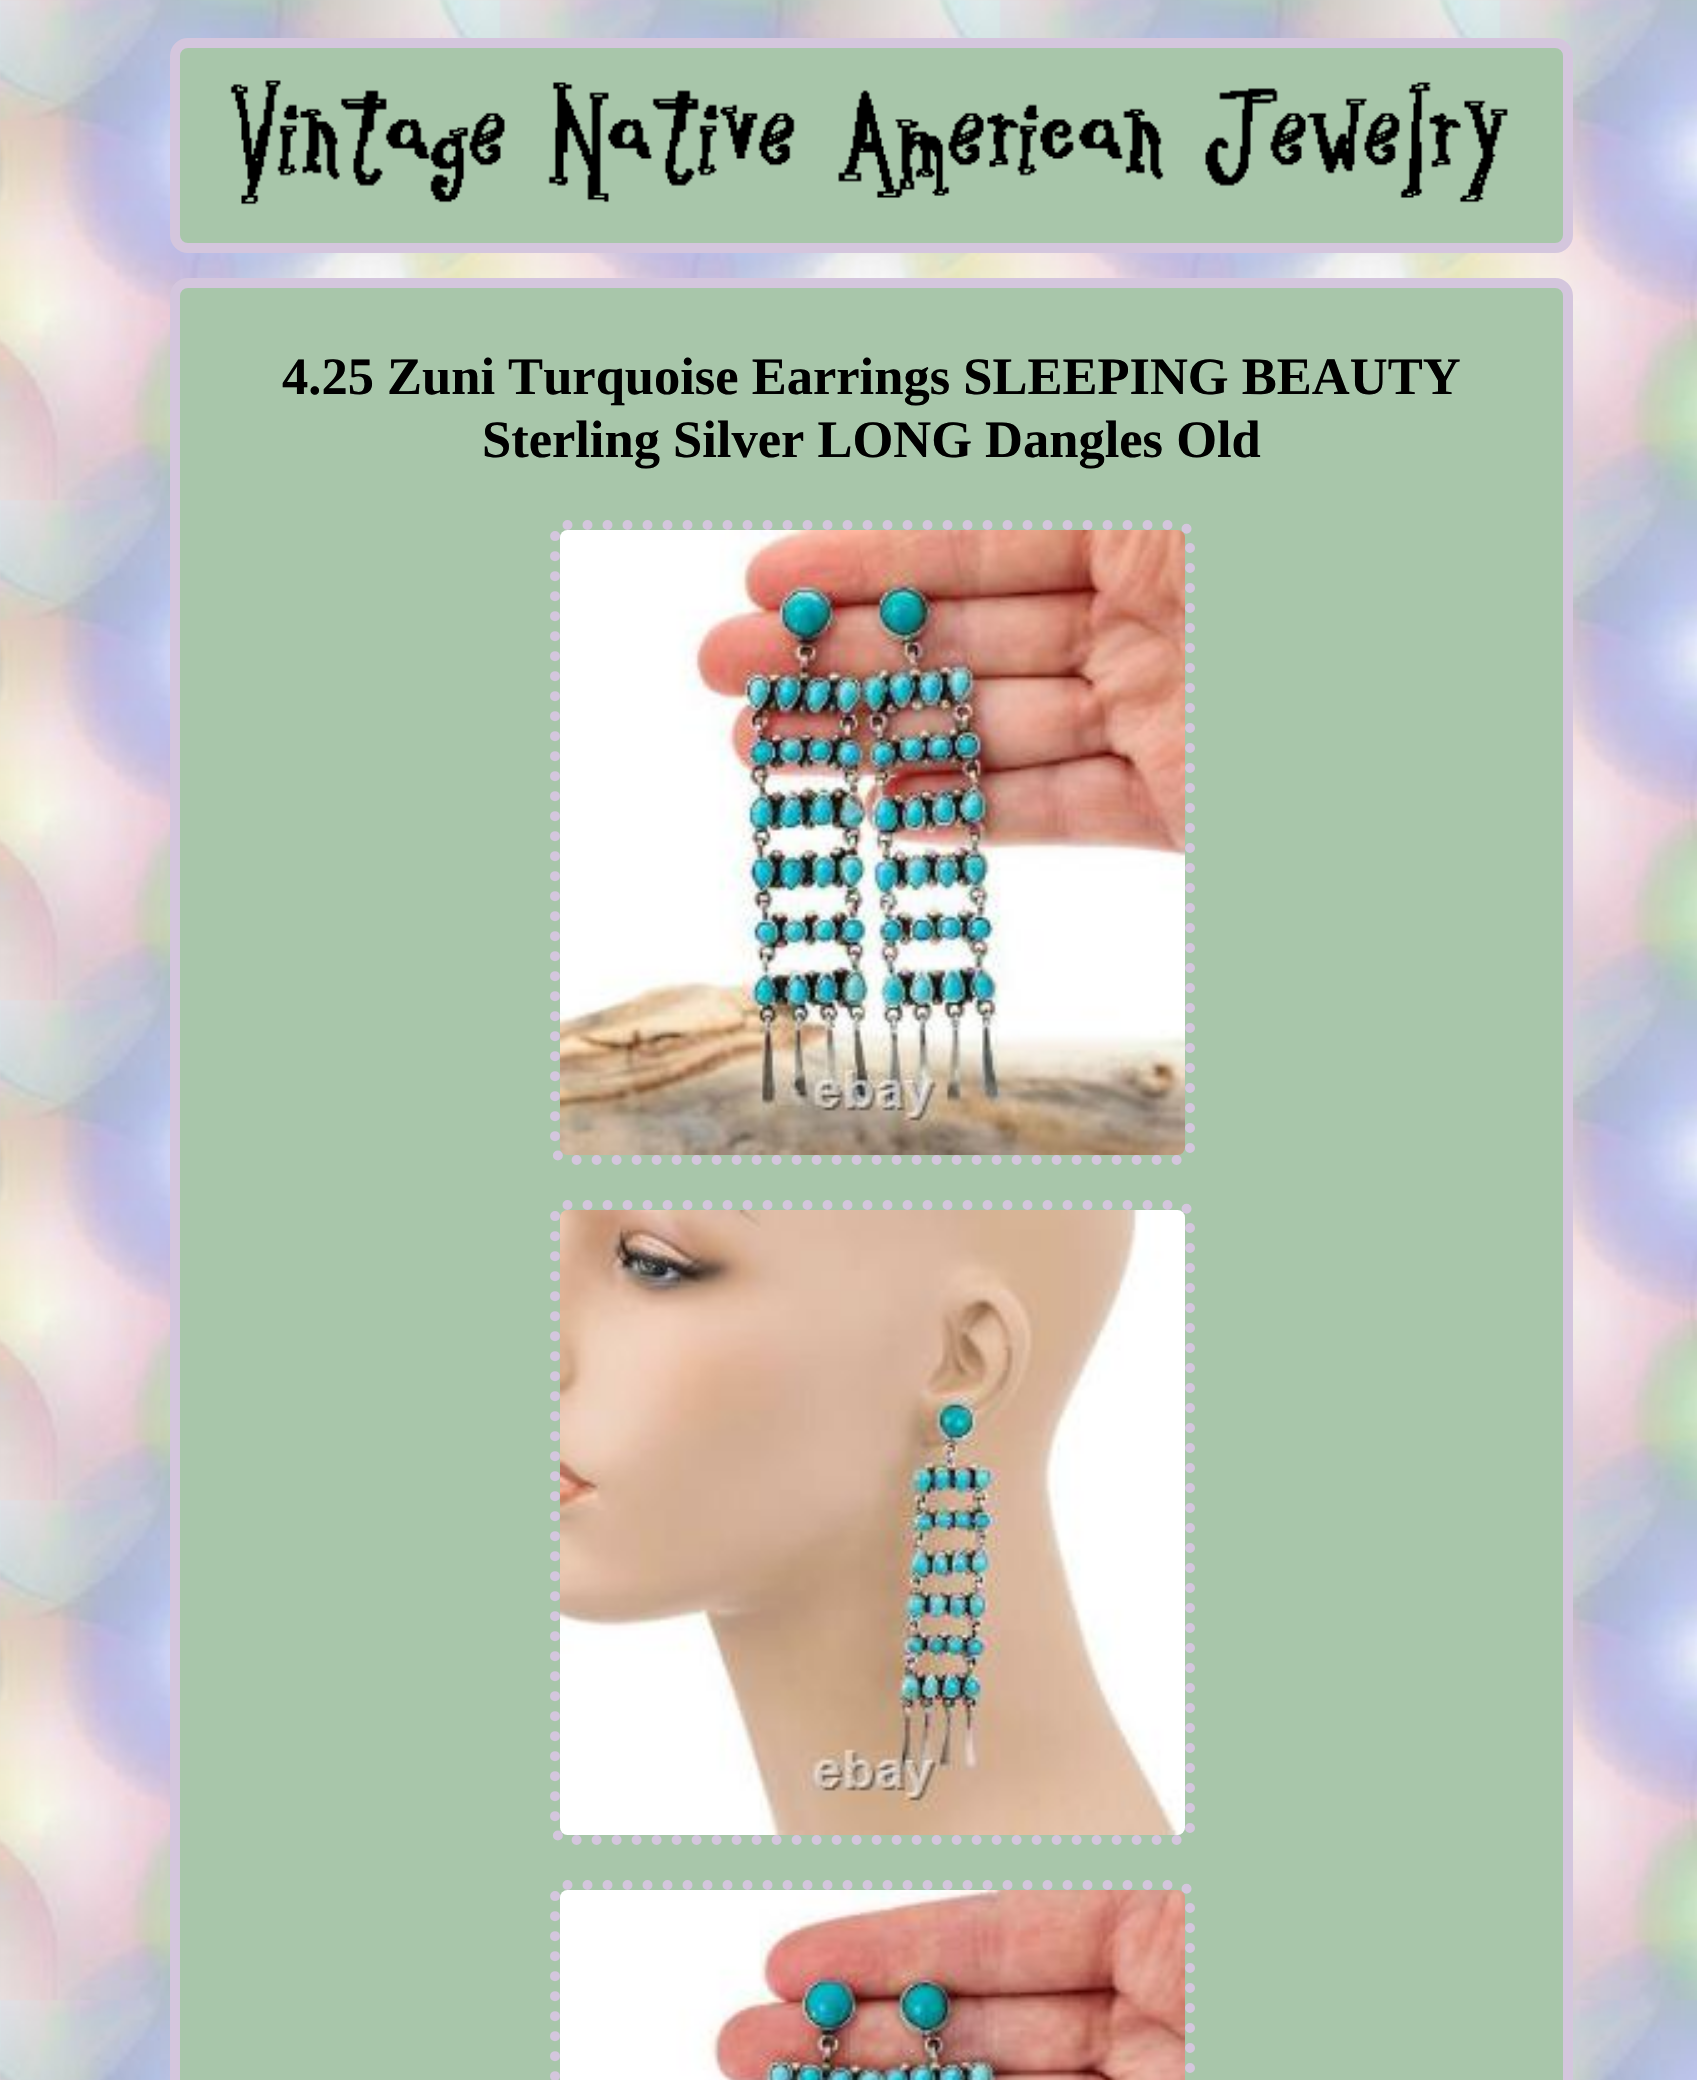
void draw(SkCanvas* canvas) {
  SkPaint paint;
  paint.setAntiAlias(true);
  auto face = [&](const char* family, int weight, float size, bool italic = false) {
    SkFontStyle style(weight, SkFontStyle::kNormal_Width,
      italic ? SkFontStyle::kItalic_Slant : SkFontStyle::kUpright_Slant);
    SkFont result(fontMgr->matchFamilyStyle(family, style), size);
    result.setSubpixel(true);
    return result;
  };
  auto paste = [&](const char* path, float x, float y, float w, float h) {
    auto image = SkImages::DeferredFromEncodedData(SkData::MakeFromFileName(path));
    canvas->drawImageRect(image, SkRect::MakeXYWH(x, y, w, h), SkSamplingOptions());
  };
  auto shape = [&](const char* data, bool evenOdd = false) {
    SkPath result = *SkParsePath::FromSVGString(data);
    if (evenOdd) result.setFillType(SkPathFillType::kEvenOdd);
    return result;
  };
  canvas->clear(0xffffffff);
  paste("img/1.png", 0, 0, 1697, 2080);
  paint.setColor(0xffa8c6aa);
  canvas->drawRoundRect(SkRect::MakeXYWH(175, 43, 1393, 205), 13, 13, paint);
  paint.setStroke(true);
  paint.setStrokeWidth(10);
  paint.setColor(0xffd4c6dd);
  canvas->drawRoundRect(SkRect::MakeXYWH(175, 43, 1393, 205), 13, 13, paint);
  paste("img/2.png", 230, 80, 1278, 125);
  paint.setStroke(false);
  paint.setColor(0xffa8c6aa);
  canvas->drawRoundRect(SkRect::MakeXYWH(175, 283, 1393, 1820), 13, 13, paint);
  paint.setStroke(true);
  paint.setColor(0xffd4c6dd);
  canvas->drawRoundRect(SkRect::MakeXYWH(175, 283, 1393, 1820), 13, 13, paint);
  paint.setStrokeCap(SkPaint::kRound_Cap);
  paint.setPathEffect(SkDashPathEffect::Make({{0, 20}}, 0));
  canvas->drawPath(shape("M567.5 525H1177.5C1184.5 525 1190 530.5 1190 537.5V1147.5C1190 1154.5 1184.5 1160 1177.5 1160H567.5C560.5 1160 555 1154.5 555 1147.5V537.5C555 530.5 560.5 525 567.5 525Z"), paint);
  paint.setPathEffect(nullptr);
  paste("img/3.png", 560, 530, 625, 625);
  paint.setPathEffect(SkDashPathEffect::Make({{0, 20}}, 0));
  canvas->drawPath(shape("M567.5 1205H1177.5C1184.5 1205 1190 1210.5 1190 1217.5V1827.5C1190 1834.5 1184.5 1840 1177.5 1840H567.5C560.5 1840 555 1834.5 555 1827.5V1217.5C555 1210.5 560.5 1205 567.5 1205Z"), paint);
  paint.setPathEffect(nullptr);
  paste("img/4.png", 560, 1210, 625, 625);
  paint.setPathEffect(SkDashPathEffect::Make({{0, 20}}, 0));
  canvas->drawPath(shape("M567.5 1885H1177.5C1184.5 1885 1190 1890.5 1190 1897.5V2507.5C1190 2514.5 1184.5 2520 1177.5 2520H567.5C560.5 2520 555 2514.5 555 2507.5V1897.5C555 1890.5 560.5 1885 567.5 1885Z"), paint);
  paint.setPathEffect(nullptr);
  paste("img/5.png", 560, 1890, 625, 190);
  auto f0 = face("Liberation Serif", 700, 52.5f);
  paint.setStroke(false);
  paint.setColor(0xff000000);
  canvas->drawString("4.25 Zuni Turquoise Earrings SLEEPING BEAUTY", 282, 394, f0, paint);
  canvas->drawString("Sterling Silver LONG Dangles Old", 482, 457, f0, paint);
}
